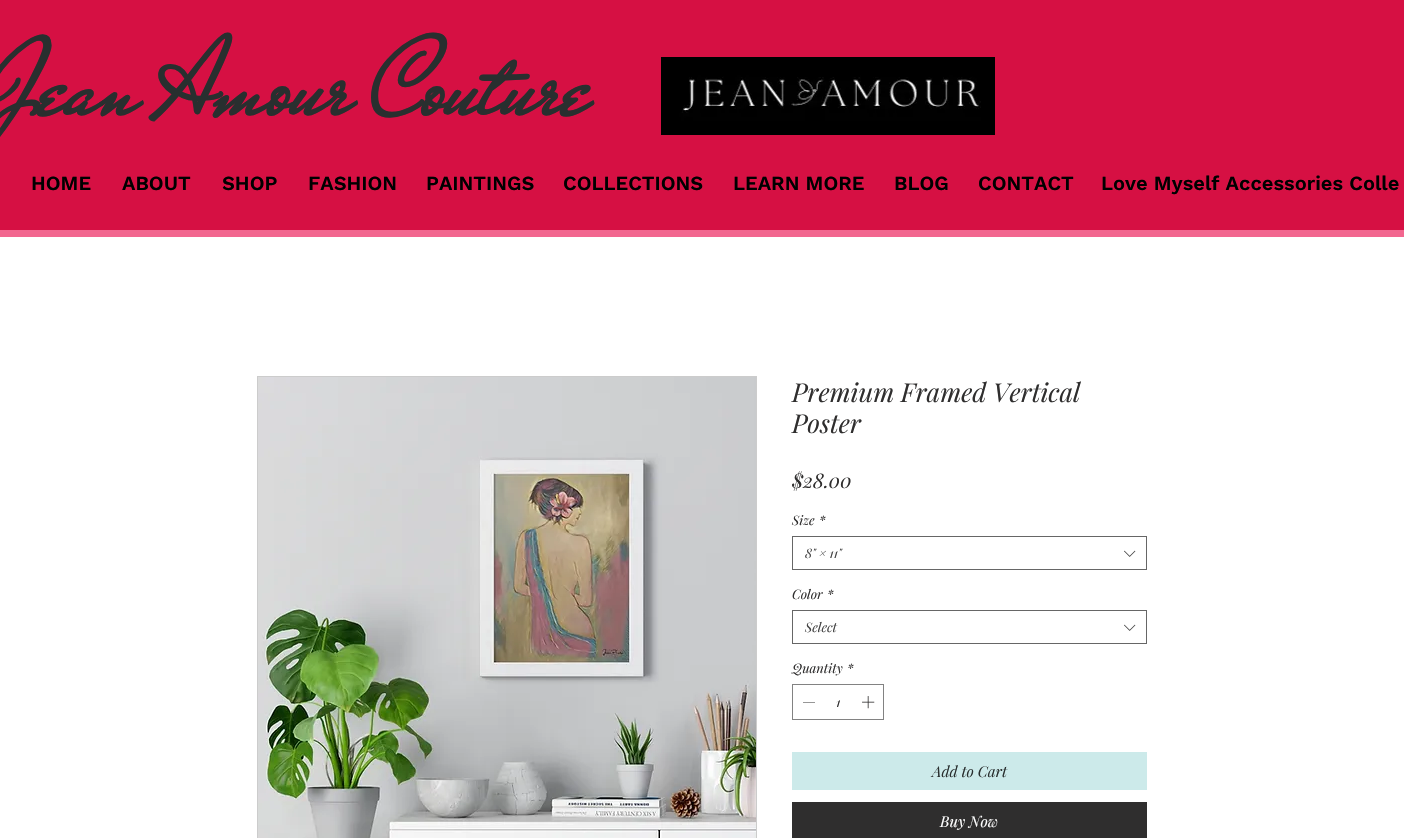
void draw(SkCanvas* canvas) {
  SkPaint paint;
  paint.setAntiAlias(true);
  auto face = [&](const char* family, int weight, float size, bool italic = false) {
    SkFontStyle style(weight, SkFontStyle::kNormal_Width,
      italic ? SkFontStyle::kItalic_Slant : SkFontStyle::kUpright_Slant);
    SkFont result(fontMgr->matchFamilyStyle(family, style), size);
    result.setSubpixel(true);
    return result;
  };
  auto paste = [&](const char* path, float x, float y, float w, float h) {
    auto image = SkImages::DeferredFromEncodedData(SkData::MakeFromFileName(path));
    canvas->drawImageRect(image, SkRect::MakeXYWH(x, y, w, h), SkSamplingOptions());
  };
  auto shape = [&](const char* data, bool evenOdd = false) {
    SkPath result = *SkParsePath::FromSVGString(data);
    if (evenOdd) result.setFillType(SkPathFillType::kEvenOdd);
    return result;
  };
  canvas->clear(0xffffffff);
  paint.setColor(0xffd61043);
  canvas->drawRect(SkRect::MakeXYWH(0, 0, 1404, 230), paint);
  paint.setColor(0xfff2668f);
  canvas->drawRect(SkRect::MakeXYWH(0, 230, 1404, 7), paint);
  paste("img/1.png", 661, 57, 334, 78);
  paint.setStroke(true);
  paint.setStrokeWidth(1);
  paint.setColor(0xffcccccc);
  canvas->drawRect(SkRect::MakeXYWH(257.5f, 376.5f, 499, 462), paint);
  paste("img/2.png", 258, 377, 498, 461);
  paint.setColor(0xff666666);
  canvas->drawRect(SkRect::MakeXYWH(792.5f, 536.5f, 354, 33), paint);
  paste("img/3.png", 1124, 550, 12, 7);
  canvas->drawRect(SkRect::MakeXYWH(792.5f, 610.5f, 354, 33), paint);
  paste("img/3.png", 1124, 624, 12, 7);
  paint.setColor(0xff828282);
  canvas->drawRect(SkRect::MakeXYWH(792.5f, 684.5f, 91, 35), paint);
  paint.setStroke(false);
  paint.setColor(0xff2f2e2e);
  canvas->drawPath(shape("M815 702V702.5H803V702Z", true), paint);
  paste("img/4.png", 862, 696, 13, 13);
  paint.setColor(0xffcceaea);
  canvas->drawRect(SkRect::MakeXYWH(792, 752, 355, 38), paint);
  paint.setColor(0xff2f2e2e);
  canvas->drawRect(SkRect::MakeXYWH(792, 802, 355, 36), paint);
  auto f0 = face("Mr De Haviland", 700, 110);
  paint.setColor(0xff292f2f);
  canvas->drawString("Jean Amour Couture", -18, 114, f0, paint);
  auto f1 = face("Work Sans", 600, 20);
  paint.setColor(0xff000000);
  {
    const struct { const char* s; float x, y; } items[] = {
      {"HOME", 31, 190},
      {"ABOUT", 122, 190},
      {"SHOP", 222, 190},
      {"FASHION", 308, 190},
      {"PAINTINGS", 426, 190},
      {"COLLECTIONS", 563, 190},
      {"LEARN MORE", 733, 190},
      {"BLOG", 894, 190},
      {"CONTACT", 978, 190},
      {"Love Myself Accessories Colle", 1101, 190},
    };
    for (auto [s, x, y] : items) {
      canvas->drawString(s, x, y, f1, paint);
    }
  }
  auto f2 = face("Playfair Display", 400, 26, true);
  paint.setColor(0xff2f2e2e);
  canvas->drawString("Premium Framed Vertical", 792, 402, f2, paint);
  canvas->drawString("Poster", 792, 433, f2, paint);
  auto f3 = face("Playfair Display", 400, 20, true);
  canvas->drawString("$28.00", 792, 488, f3, paint);
  auto f4 = face("Playfair Display", 400, 13, true);
  canvas->drawString("Size", 792, 525, f4, paint);
  canvas->drawString("*", 819, 525, f4, paint);
  paint.setColor(0xff444444);
  canvas->drawString("8\" × 11\"", 805, 558, f4, paint);
  paint.setColor(0xff2f2e2e);
  canvas->drawString("Color", 792, 599, f4, paint);
  canvas->drawString("*", 827, 599, f4, paint);
  paint.setColor(0xff444444);
  canvas->drawString("Select", 805, 632, f4, paint);
  paint.setColor(0xff2f2e2e);
  {
    const struct { const char* s; float x, y; } items[] = {
      {"Quantity", 792, 673},
      {"*", 847, 673},
      {"1", 836, 707},
    };
    for (auto [s, x, y] : items) {
      canvas->drawString(s, x, y, f4, paint);
    }
  }
  auto f5 = face("Playfair Display", 400, 15, true);
  paint.setColor(0xff292f2f);
  canvas->drawString("Add to Cart", 932, 777, f5, paint);
  paint.setColor(0xffffffff);
  canvas->drawString("Buy Now", 940, 827, f5, paint);
}
